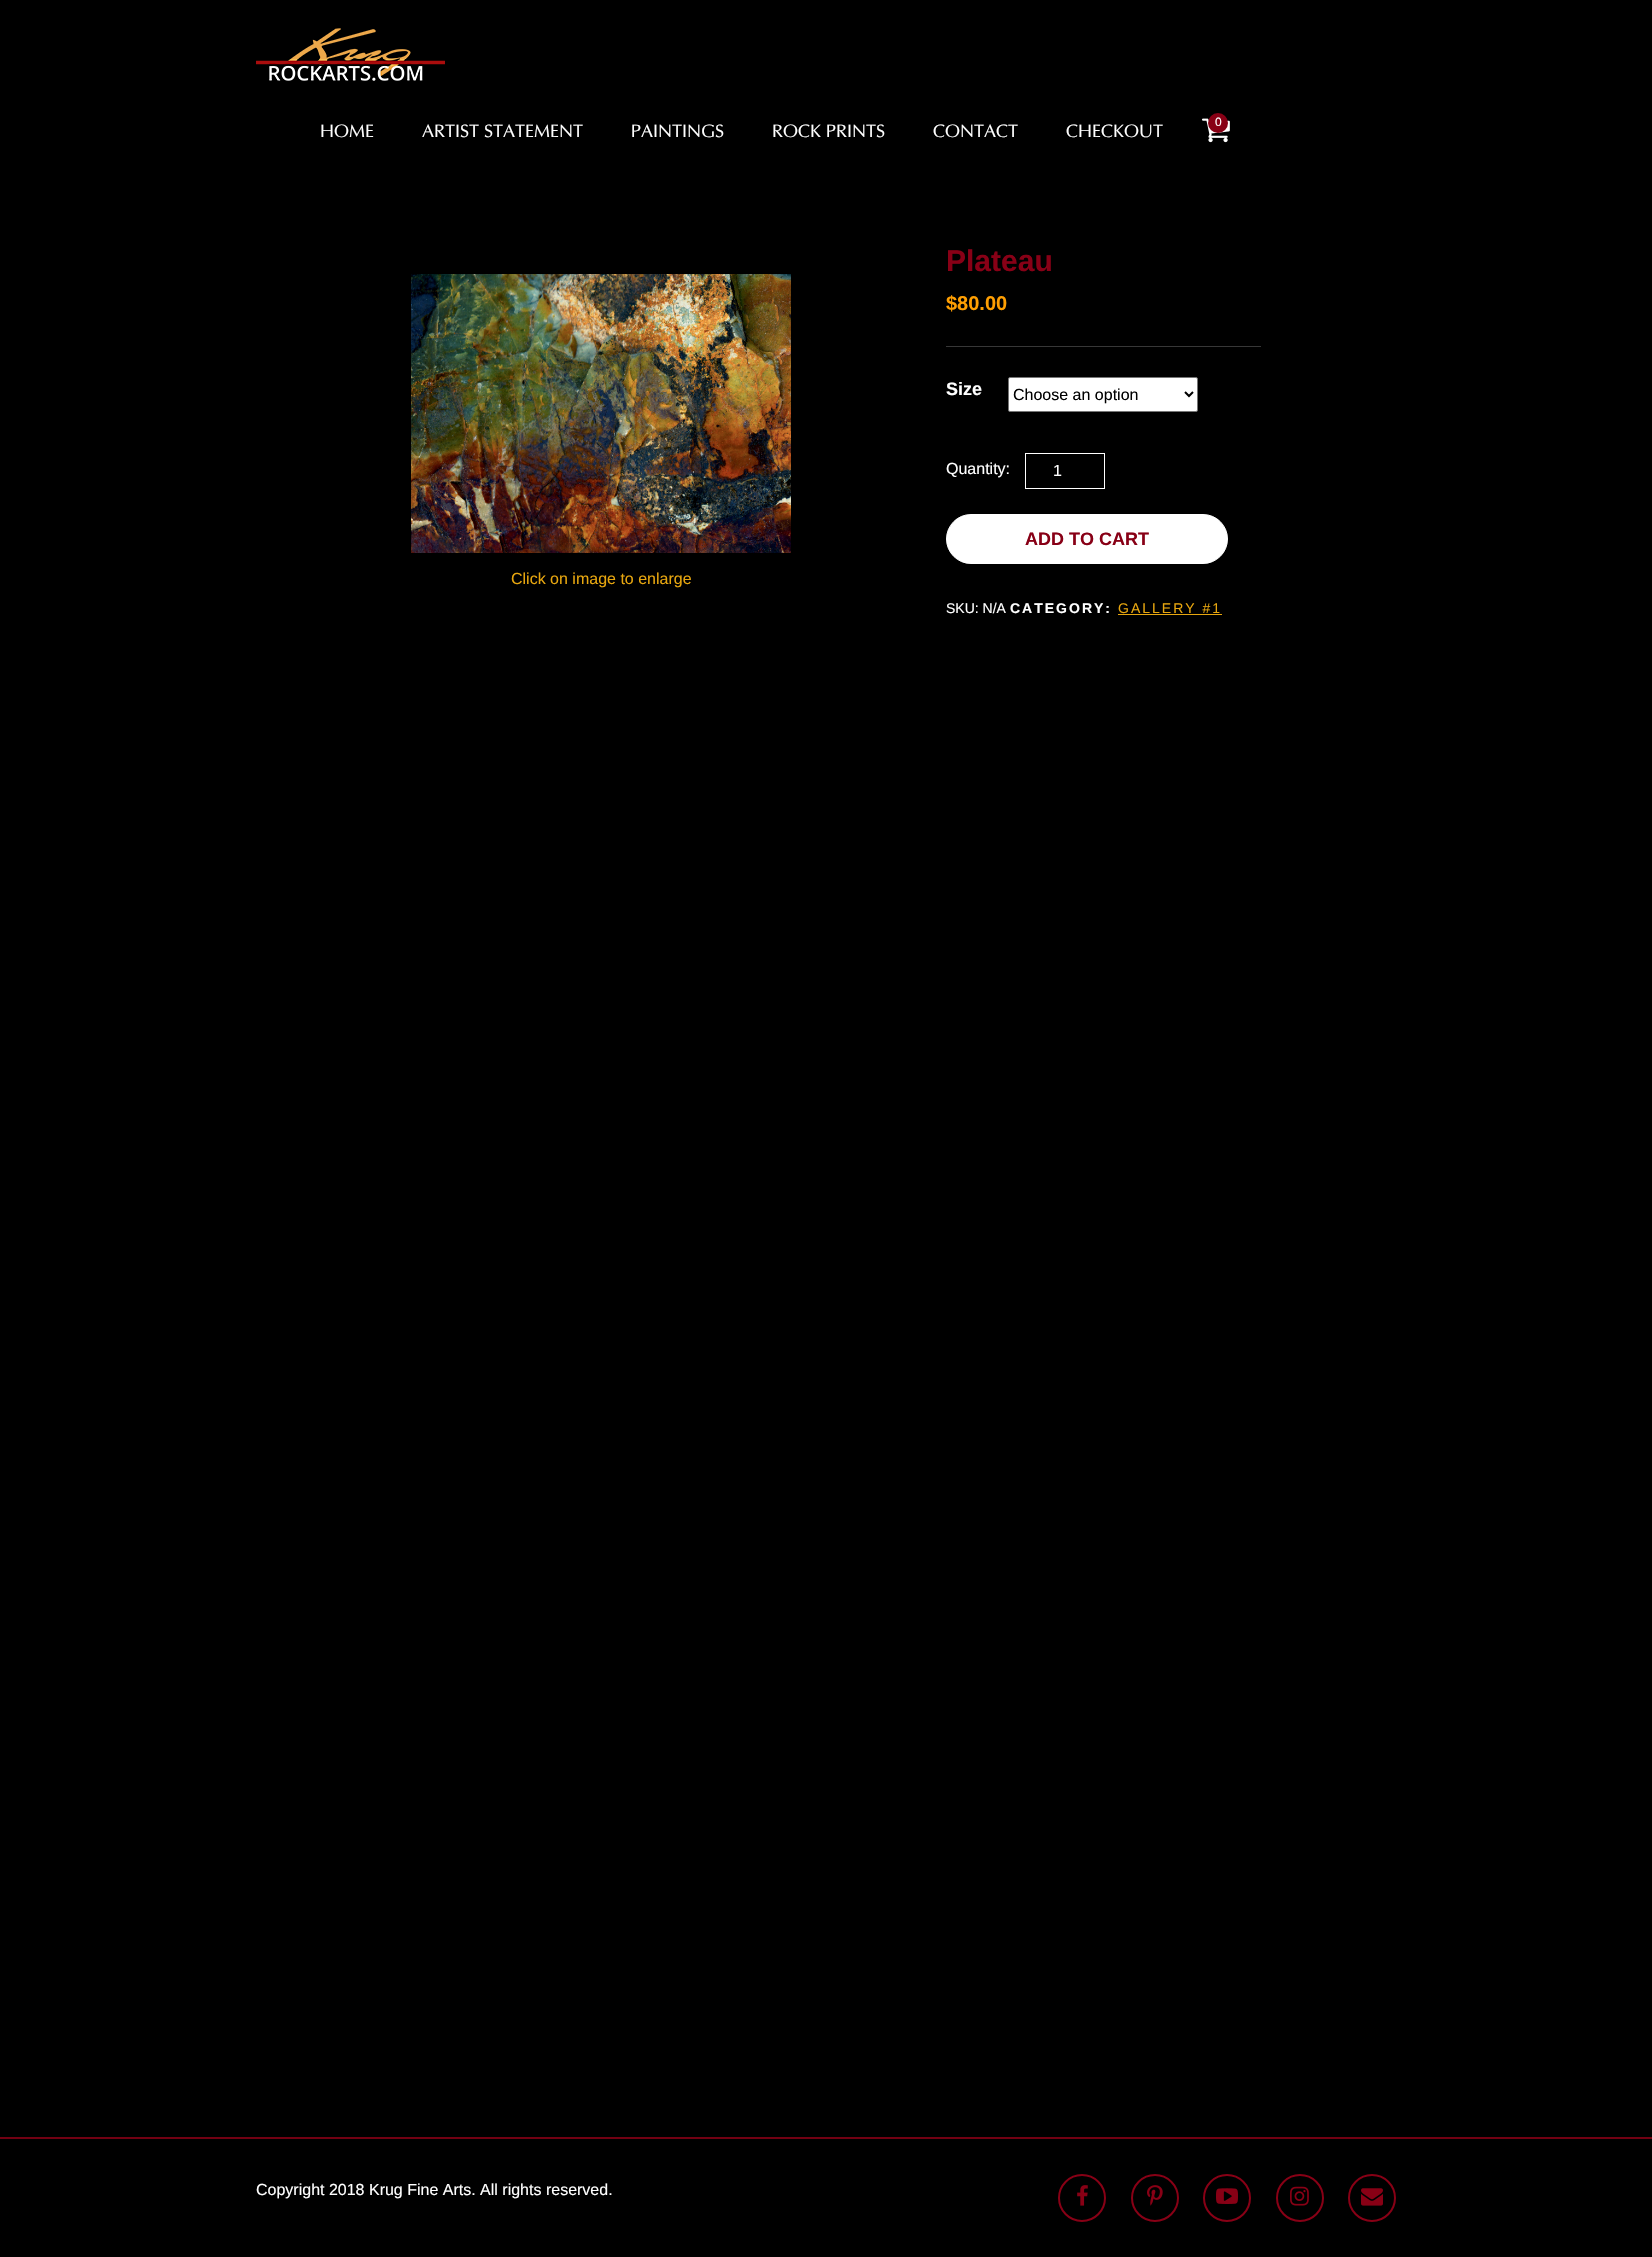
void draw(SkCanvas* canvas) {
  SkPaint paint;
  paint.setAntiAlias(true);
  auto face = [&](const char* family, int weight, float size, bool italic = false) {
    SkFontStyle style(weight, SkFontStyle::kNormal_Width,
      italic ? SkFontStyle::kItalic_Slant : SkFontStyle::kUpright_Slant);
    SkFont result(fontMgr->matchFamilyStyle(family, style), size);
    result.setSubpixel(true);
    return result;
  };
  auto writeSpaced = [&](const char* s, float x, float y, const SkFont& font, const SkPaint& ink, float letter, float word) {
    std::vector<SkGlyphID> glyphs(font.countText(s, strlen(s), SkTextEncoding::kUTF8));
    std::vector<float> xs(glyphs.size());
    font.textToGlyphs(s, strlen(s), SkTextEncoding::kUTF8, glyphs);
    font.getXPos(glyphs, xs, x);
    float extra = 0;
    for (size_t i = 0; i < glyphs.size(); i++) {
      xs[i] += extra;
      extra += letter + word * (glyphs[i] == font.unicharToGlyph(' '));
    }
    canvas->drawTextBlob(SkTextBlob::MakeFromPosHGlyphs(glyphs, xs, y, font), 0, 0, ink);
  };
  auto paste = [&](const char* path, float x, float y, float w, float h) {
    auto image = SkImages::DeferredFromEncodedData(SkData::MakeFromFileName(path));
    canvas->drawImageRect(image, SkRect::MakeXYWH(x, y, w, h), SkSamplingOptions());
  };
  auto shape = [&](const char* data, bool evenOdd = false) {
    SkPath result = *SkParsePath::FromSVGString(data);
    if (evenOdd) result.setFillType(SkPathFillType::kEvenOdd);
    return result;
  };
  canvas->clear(0xff000000);
  paste("img/1.png", 256, 28, 189, 53);
  paste("img/2.png", 1202, 118, 28, 25);
  paint.setColor(0xff880015);
  canvas->drawCircle(1218, 123, 10, paint);
  paste("img/3.png", 411, 274, 380, 279);
  paint.setColor(0xff373737);
  canvas->drawRect(SkRect::MakeXYWH(946, 346, 315, 1), paint);
  paint.setColor(0xffffffff);
  canvas->drawRoundRect(SkRect::MakeXYWH(1008.5f, 377.5f, 189, 34), 1.5f, 1.5f, paint);
  paint.setStroke(true);
  paint.setStrokeWidth(1);
  paint.setColor(0xff767676);
  canvas->drawRoundRect(SkRect::MakeXYWH(1008.5f, 377.5f, 189, 34), 1.5f, 1.5f, paint);
  paint.setStrokeWidth(2);
  paint.setColor(0xff000000);
  canvas->drawPath(shape("M1185 392L1189 396L1193 392"), paint);
  paint.setStrokeWidth(1);
  paint.setColor(0xffffffff);
  canvas->drawRect(SkRect::MakeXYWH(1025.5f, 453.5f, 79, 35), paint);
  paint.setStroke(false);
  canvas->drawRoundRect(SkRect::MakeXYWH(946.5f, 514.5f, 281, 49), 24.5f, 24.5f, paint);
  paint.setStroke(true);
  canvas->drawRoundRect(SkRect::MakeXYWH(946.5f, 514.5f, 281, 49), 24.5f, 24.5f, paint);
  paint.setStroke(false);
  paint.setColor(0xffe7a60f);
  canvas->drawRect(SkRect::MakeXYWH(1118, 614, 104, 1), paint);
  paint.setColor(0xff720012);
  canvas->drawRect(SkRect::MakeXYWH(0, 2137, 1652, 2), paint);
  paint.setStroke(true);
  paint.setStrokeWidth(2);
  paint.setColor(0xff880015);
  canvas->drawCircle(1082, 2198, 23, paint);
  paste("img/4.png", 1077, 2185, 11, 21);
  canvas->drawCircle(1155, 2198, 23, paint);
  paste("img/5.png", 1147, 2185, 16, 21);
  canvas->drawCircle(1227, 2198, 23, paint);
  paste("img/6.png", 1216, 2188, 22, 16);
  canvas->drawCircle(1300, 2198, 23, paint);
  paste("img/7.png", 1290, 2186, 19, 20);
  canvas->drawCircle(1372, 2198, 23, paint);
  paste("img/8.png", 1361, 2188, 22, 18);
  auto f0 = face("Liberation Sans", 400, 12);
  paint.setStroke(false);
  paint.setColor(0xffffffff);
  canvas->drawString("0", 1215, 126, f0, paint);
  auto f1 = face("optima", 400, 18);
  {
    const struct { const char* s; float x, y; } items[] = {
      {"HOME", 320, 137},
      {"ARTIST STATEMENT", 422, 137},
      {"PAINTINGS", 631, 137},
      {"ROCK PRINTS", 772, 137},
      {"CONTACT", 933, 137},
      {"CHECKOUT", 1066, 137},
    };
    for (auto [s, x, y] : items) {
      canvas->drawString(s, x, y, f1, paint);
    }
  }
  auto f2 = face("Liberation Sans", 400, 16);
  paint.setColor(0xffe7a60f);
  canvas->drawString("Click on image to enlarge", 511, 584, f2, paint);
  auto f3 = face("Liberation Sans", 700, 30);
  paint.setColor(0xff880016);
  canvas->drawString("Plateau", 946, 271, f3, paint);
  auto f4 = face("Liberation Sans", 700, 20);
  paint.setColor(0xffff9f02);
  canvas->drawString("$80.00", 946, 310, f4, paint);
  auto f5 = face("Liberation Sans", 700, 18);
  paint.setColor(0xffffffff);
  canvas->drawString("Size", 946, 395, f5, paint);
  paint.setColor(0xff000000);
  canvas->drawString("Choose an option", 1013, 400, f2, paint);
  paint.setColor(0xffffffff);
  canvas->drawString("Quantity:", 946, 474, f2, paint);
  canvas->drawString("1", 1053, 476, f2, paint);
  paint.setColor(0xff880016);
  canvas->drawString("ADD TO CART", 1025, 545, f5, paint);
  auto f6 = face("Liberation Sans", 400, 14);
  paint.setColor(0xffffffff);
  canvas->drawString("SKU: N/A", 946, 613, f6, paint);
  auto f7 = face("Liberation Sans", 700, 14);
  writeSpaced("CATEGORY:", 1010, 613, f7, paint, 2, 0);
  paint.setColor(0xffe7a60f);
  writeSpaced("GALLERY #1", 1118, 613, f6, paint, 2, 0);
  paint.setColor(0xffffffff);
  canvas->drawString("Copyright 2018 Krug Fine Arts. All rights reserved.", 256, 2195, f2, paint);
}
